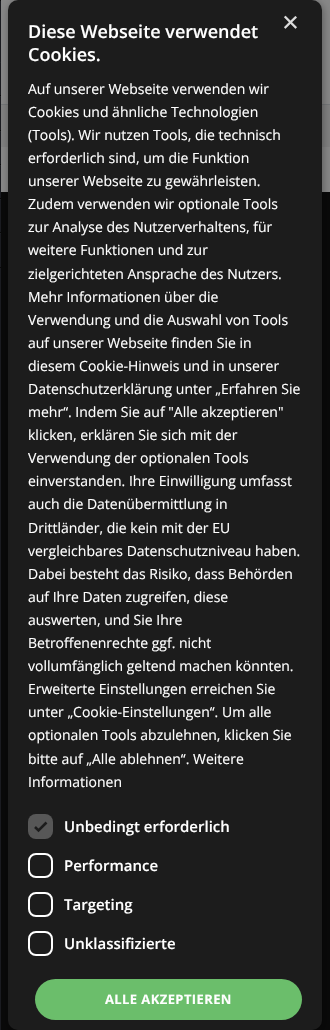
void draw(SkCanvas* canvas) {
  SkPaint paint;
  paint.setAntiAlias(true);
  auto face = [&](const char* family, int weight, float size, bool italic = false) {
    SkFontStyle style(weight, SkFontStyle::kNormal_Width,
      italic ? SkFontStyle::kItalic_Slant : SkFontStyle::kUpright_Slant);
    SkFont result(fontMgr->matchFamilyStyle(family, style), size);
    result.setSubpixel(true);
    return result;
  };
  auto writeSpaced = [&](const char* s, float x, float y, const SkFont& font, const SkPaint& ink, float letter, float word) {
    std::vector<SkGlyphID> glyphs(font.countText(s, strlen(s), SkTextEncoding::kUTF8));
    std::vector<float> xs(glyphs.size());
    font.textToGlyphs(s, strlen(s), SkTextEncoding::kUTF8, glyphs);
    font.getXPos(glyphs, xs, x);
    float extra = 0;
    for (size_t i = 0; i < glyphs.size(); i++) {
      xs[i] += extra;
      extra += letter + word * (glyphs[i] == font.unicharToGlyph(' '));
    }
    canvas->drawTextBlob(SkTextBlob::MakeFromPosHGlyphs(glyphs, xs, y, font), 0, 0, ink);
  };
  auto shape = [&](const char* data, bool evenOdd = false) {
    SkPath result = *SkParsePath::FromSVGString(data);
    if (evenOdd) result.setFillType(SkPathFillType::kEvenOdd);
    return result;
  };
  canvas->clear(0xff888888);
  {
    const struct { float x, y, w, h; SkColor color; } items[] = {
      {0, 104, 330, 1, 0xff757779},
      {0, 0, 1, 1030, 0xff1a1b20},
      {0, 0, 1, 1, 0xff090909},
      {0, 62, 1, 1, 0xff1f2125},
      {0, 95, 1, 1, 0xff090909},
      {0, 96, 1, 1, 0xff1f2125},
      {0, 130, 1, 1, 0xff090909},
      {0, 131, 1, 1, 0xff1f2125},
      {0, 164, 1, 1, 0xff090909},
      {0, 165, 1, 1, 0xff1f2125},
      {0, 198, 1, 1, 0xff090909},
      {0, 199, 1, 1, 0xff1f2125},
      {0, 232, 1, 1, 0xff090909},
      {0, 233, 1, 1, 0xff1f2125},
      {0, 267, 1, 1, 0xff090909},
      {1, 105, 329, 42, 0xff818181},
      {1, 192, 329, 838, 0xff090909},
    };
    for (auto [x, y, w, h, color] : items) {
      paint.setColor(color);
      canvas->drawRect(SkRect::MakeXYWH(x, y, w, h), paint);
    }
  }
  paint.setColor(0x59000000);
  paint.setMaskFilter(SkMaskFilter::MakeBlur(kNormal_SkBlurStyle, 4));
  canvas->drawRoundRect(SkRect::MakeXYWH(9, 2, 314, 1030), 10, 10, paint);
  paint.setMaskFilter(nullptr);
  paint.setColor(0xff1c1c1c);
  canvas->drawRoundRect(SkRect::MakeXYWH(8, 0, 314, 1030), 10, 10, paint);
  paint.setColor(0xff575757);
  canvas->drawRoundRect(SkRect::MakeXYWH(28, 814, 25, 25), 8, 8, paint);
  paint.setStroke(true);
  paint.setStrokeWidth(2.6f);
  paint.setColor(0xff1c1c1c);
  canvas->drawPath(shape("M35 827L38.5 830.5L46.5 822.5"), paint);
  paint.setStrokeWidth(2);
  paint.setColor(0xffffffff);
  canvas->drawRoundRect(SkRect::MakeXYWH(29, 854, 23, 23), 7, 7, paint);
  canvas->drawRoundRect(SkRect::MakeXYWH(29, 893, 23, 23), 7, 7, paint);
  canvas->drawRoundRect(SkRect::MakeXYWH(29, 932, 23, 23), 7, 7, paint);
  paint.setStroke(false);
  paint.setColor(0xff6bbe6b);
  canvas->drawRoundRect(SkRect::MakeXYWH(35, 979, 267, 41), 20.5f, 20.5f, paint);
  auto f0 = face("Liberation Sans", 400, 29);
  paint.setColor(0xffdddddd);
  canvas->drawString("×", 282, 32, f0, paint);
  auto f1 = face("Open Sans", 600, 18);
  paint.setColor(0xffffffff);
  canvas->drawString("Diese Webseite verwendet", 28, 38, f1, paint);
  canvas->drawString("Cookies.", 28, 61, f1, paint);
  auto f2 = face("Open Sans", 400, 14);
  {
    const struct { const char* s; float x, y; } items[] = {
      {"Auf unserer Webseite verwenden wir", 28, 94},
      {"Cookies und ähnliche Technologien", 28, 117},
      {"(Tools). Wir nutzen Tools, die technisch", 28, 140},
      {"erforderlich sind, um die Funktion", 28, 163},
      {"unserer Webseite zu gewährleisten.", 28, 186},
      {"Zudem verwenden wir optionale Tools", 28, 209},
      {"zur Analyse des Nutzerverhaltens, für", 28, 232},
      {"weitere Funktionen und zur", 28, 255},
      {"zielgerichteten Ansprache des Nutzers.", 28, 279},
      {"Mehr Informationen über die", 28, 302},
      {"Verwendung und die Auswahl von Tools", 28, 325},
      {"auf unserer Webseite finden Sie in", 28, 348},
      {"diesem Cookie-Hinweis und in unserer", 28, 371},
      {"Datenschutzerklärung unter „Erfahren Sie", 28, 394},
      {"mehr“. Indem Sie auf \"Alle akzeptieren\"", 28, 417},
      {"klicken, erklären Sie sich mit der", 28, 440},
      {"Verwendung der optionalen Tools", 28, 463},
      {"einverstanden. Ihre Einwilligung umfasst", 28, 486},
      {"auch die Datenübermittlung in", 28, 509},
      {"Drittländer, die kein mit der EU", 28, 533},
      {"vergleichbares Datenschutzniveau haben.", 28, 556},
      {"Dabei besteht das Risiko, dass Behörden", 28, 579},
      {"auf Ihre Daten zugreifen, diese", 28, 602},
      {"auswerten, und Sie Ihre", 28, 625},
      {"Betroffenenrechte ggf. nicht", 28, 648},
      {"vollumfänglich geltend machen könnten.", 28, 671},
      {"Erweiterte Einstellungen erreichen Sie", 28, 694},
      {"unter „Cookie-Einstellungen“. Um alle", 28, 717},
      {"optionalen Tools abzulehnen, klicken Sie", 28, 740},
      {"bitte auf „Alle ablehnen“. Weitere", 28, 764},
      {"Informationen", 28, 787},
    };
    for (auto [s, x, y] : items) {
      canvas->drawString(s, x, y, f2, paint);
    }
  }
  auto f3 = face("Open Sans", 600, 15);
  {
    const struct { const char* s; float x, y; } items[] = {
      {"Unbedingt erforderlich", 64, 832},
      {"Performance", 64, 871},
      {"Targeting", 64, 910},
      {"Unklassifizierte", 64, 949},
    };
    for (auto [s, x, y] : items) {
      canvas->drawString(s, x, y, f3, paint);
    }
  }
  auto f4 = face("Open Sans", 700, 13);
  writeSpaced("ALLE AKZEPTIEREN", 105, 1004, f4, paint, 0.4f, 0);
}
